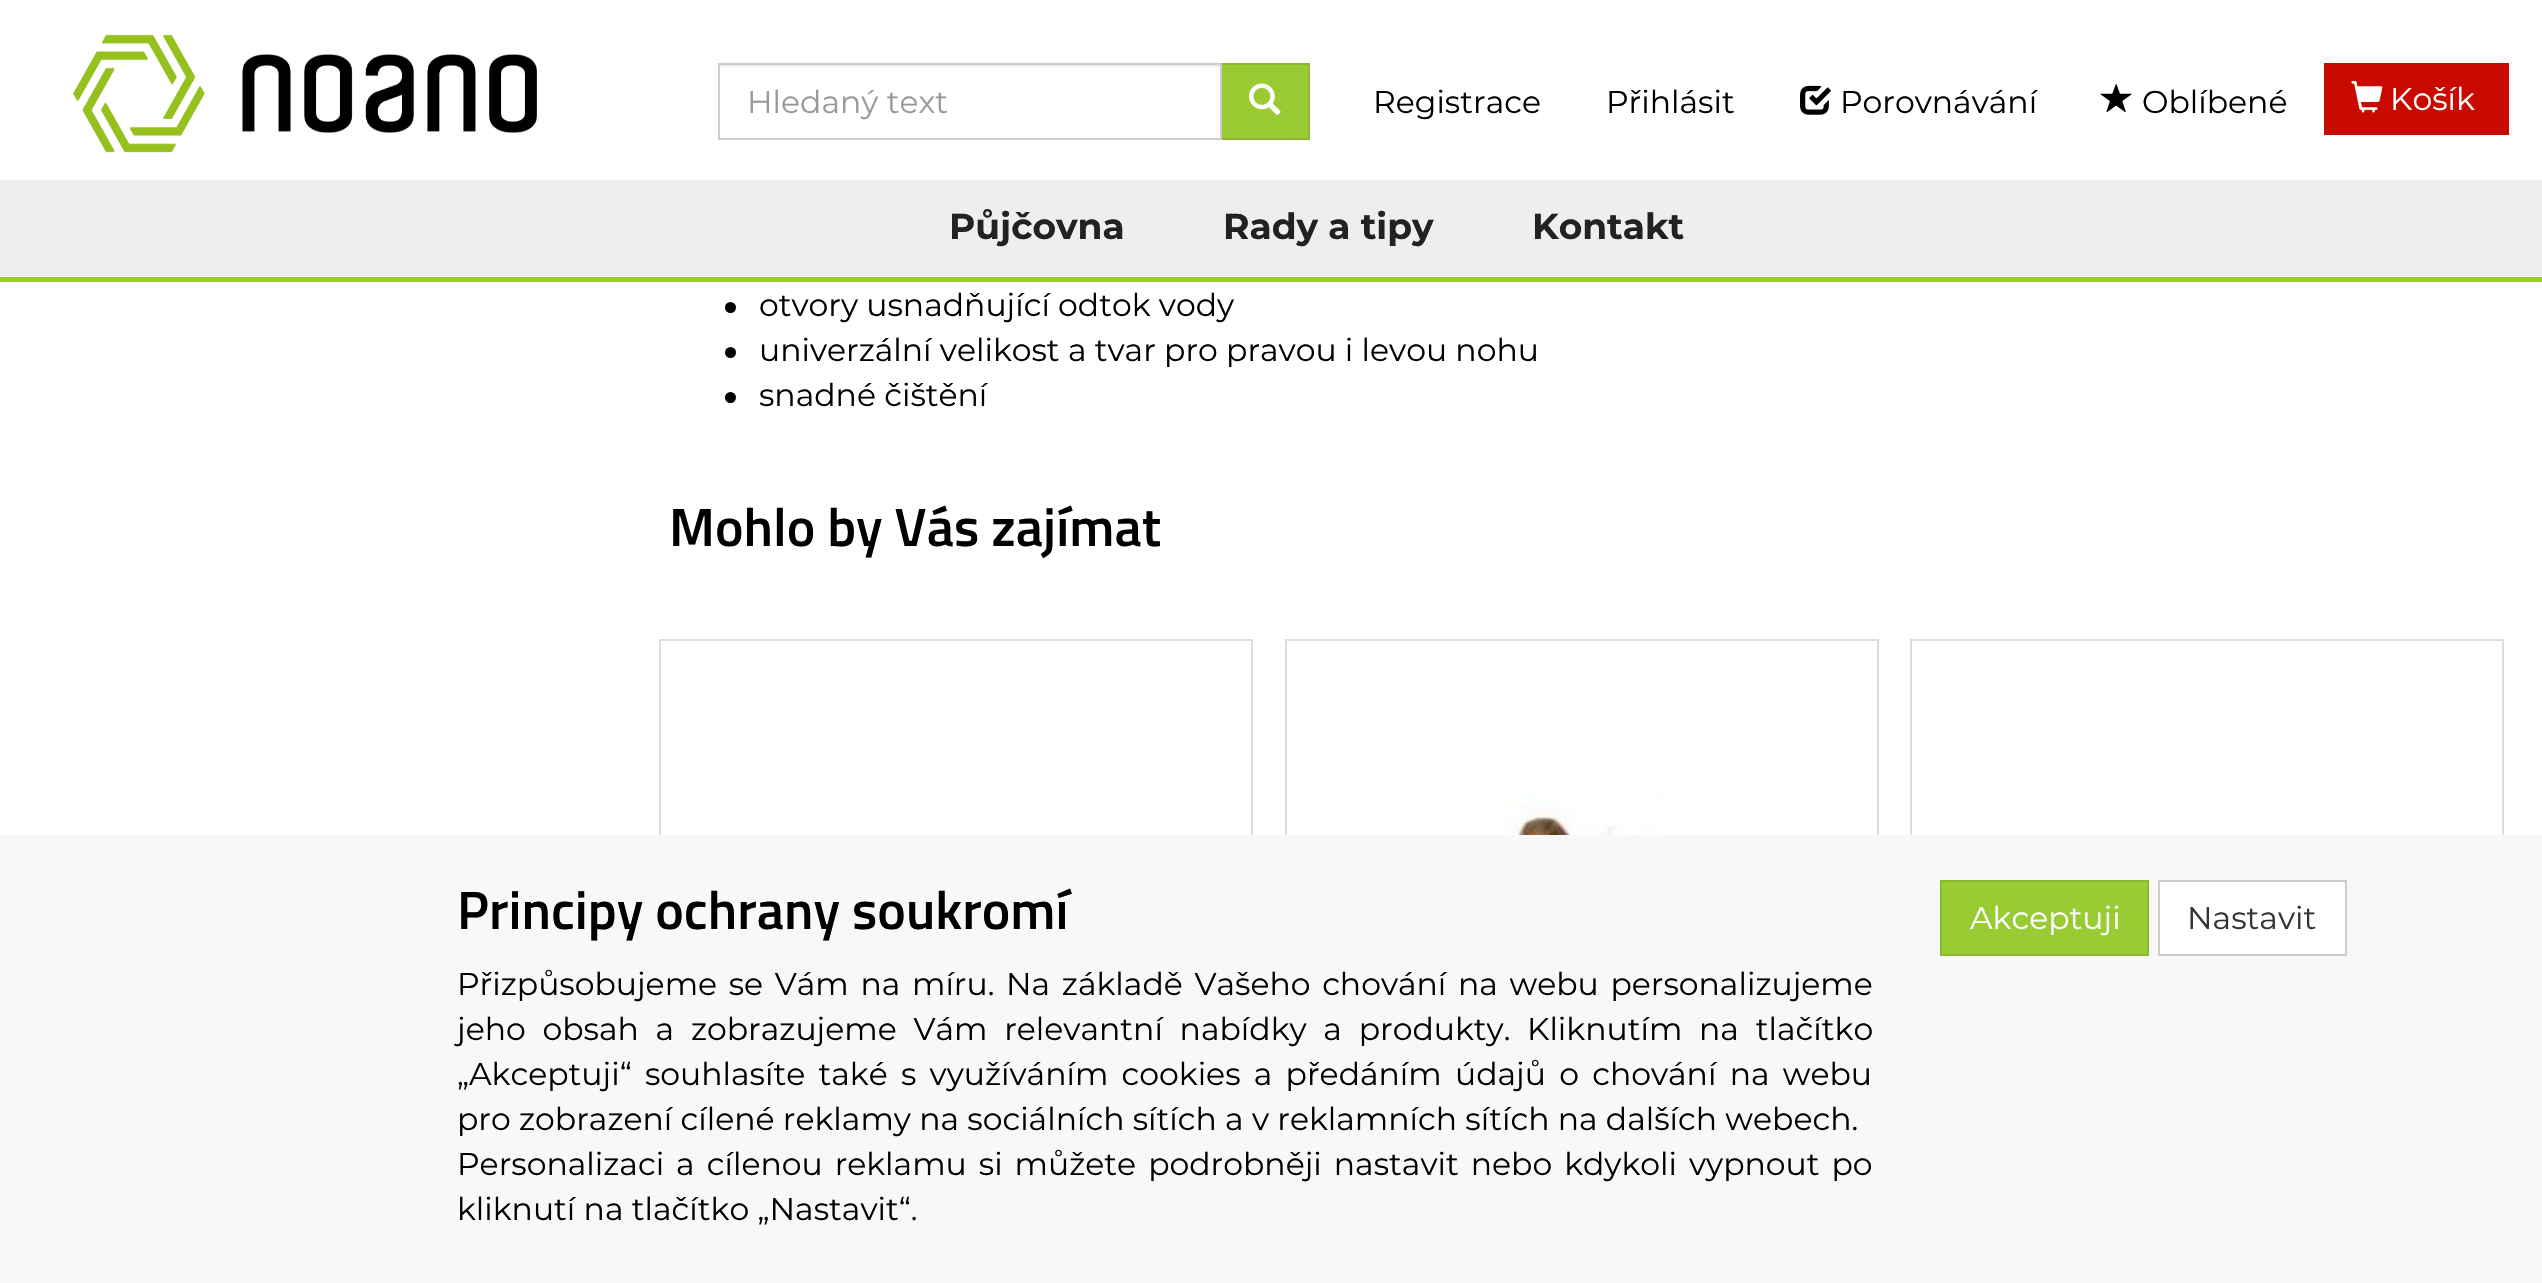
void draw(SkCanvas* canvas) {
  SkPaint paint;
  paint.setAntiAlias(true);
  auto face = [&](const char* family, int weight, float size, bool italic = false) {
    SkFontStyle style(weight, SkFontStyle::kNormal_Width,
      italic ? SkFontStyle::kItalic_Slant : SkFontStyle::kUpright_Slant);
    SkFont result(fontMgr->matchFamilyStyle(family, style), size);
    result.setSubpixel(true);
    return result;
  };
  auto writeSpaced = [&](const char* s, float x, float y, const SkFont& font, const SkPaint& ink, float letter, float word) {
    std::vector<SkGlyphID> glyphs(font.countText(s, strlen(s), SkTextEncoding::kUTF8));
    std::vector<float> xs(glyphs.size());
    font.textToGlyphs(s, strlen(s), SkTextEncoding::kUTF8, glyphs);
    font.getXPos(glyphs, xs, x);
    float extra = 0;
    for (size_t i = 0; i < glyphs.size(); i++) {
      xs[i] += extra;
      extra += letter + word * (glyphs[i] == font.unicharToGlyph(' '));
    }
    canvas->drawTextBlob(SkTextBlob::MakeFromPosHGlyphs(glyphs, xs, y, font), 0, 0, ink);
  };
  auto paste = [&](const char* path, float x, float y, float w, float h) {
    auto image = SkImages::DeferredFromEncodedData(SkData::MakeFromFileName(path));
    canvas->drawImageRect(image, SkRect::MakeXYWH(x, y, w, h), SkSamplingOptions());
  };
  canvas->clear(0xffffffff);
  paste("img/1.png", 73, 34, 464, 119);
  paint.setColor(0xffececec);
  canvas->drawRect(SkRect::MakeXYWH(720, 65, 500, 2), paint);
  paint.setColor(0xff99cc33);
  canvas->drawRect(SkRect::MakeXYWH(1221, 64, 88, 75), paint);
  paint.setStroke(true);
  paint.setStrokeWidth(2);
  paint.setColor(0xff8ab82e);
  canvas->drawRect(SkRect::MakeXYWH(1221, 64, 88, 75), paint);
  paint.setColor(0xffcccccc);
  canvas->drawRect(SkRect::MakeXYWH(719, 64, 502, 75), paint);
  paste("img/2.png", 1249, 83, 32, 32);
  paste("img/3.png", 1800, 85, 31, 30);
  paste("img/4.png", 2100, 84, 32, 29);
  paint.setStroke(false);
  paint.setColor(0xffc80a00);
  canvas->drawRect(SkRect::MakeXYWH(2324, 63, 185, 72), paint);
  paste("img/5.png", 2351, 81, 32, 32);
  paint.setColor(0xffeeeeee);
  canvas->drawRect(SkRect::MakeXYWH(0, 180, 2542, 97), paint);
  paint.setColor(0xff99cc33);
  canvas->drawRect(SkRect::MakeXYWH(0, 277, 2542, 5), paint);
  paint.setColor(0xff000000);
  canvas->drawCircle(730.5f, 307.5f, 5.5f, paint);
  canvas->drawCircle(730.5f, 352.5f, 5.5f, paint);
  canvas->drawCircle(730.5f, 397.5f, 5.5f, paint);
  paint.setStroke(true);
  paint.setColor(0xffdddddd);
  canvas->drawRect(SkRect::MakeXYWH(660, 640, 592, 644), paint);
  canvas->drawRect(SkRect::MakeXYWH(1286, 640, 592, 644), paint);
  paste("img/6.png", 1471, 789, 198, 46);
  canvas->drawRect(SkRect::MakeXYWH(1911, 640, 592, 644), paint);
  paint.setStroke(false);
  paint.setColor(0xfff8f8f8);
  canvas->drawRect(SkRect::MakeXYWH(0, 835, 2542, 448), paint);
  paint.setColor(0xff99cc33);
  canvas->drawRect(SkRect::MakeXYWH(1941, 881, 207, 74), paint);
  paint.setStroke(true);
  paint.setColor(0xff8ab82e);
  canvas->drawRect(SkRect::MakeXYWH(1941, 881, 207, 74), paint);
  paint.setStroke(false);
  paint.setColor(0xffffffff);
  canvas->drawRect(SkRect::MakeXYWH(2159, 881, 187, 74), paint);
  paint.setStroke(true);
  paint.setColor(0xffcccccc);
  canvas->drawRect(SkRect::MakeXYWH(2159, 881, 187, 74), paint);
  auto f0 = face("Montserrat", 400, 31.5f);
  paint.setStroke(false);
  paint.setColor(0xff999999);
  canvas->drawString("Hledaný text", 747, 113, f0, paint);
  paint.setColor(0xff000000);
  {
    const struct { const char* s; float x, y; } items[] = {
      {"Registrace", 1373, 113},
      {"Přihlásit", 1606, 113},
      {"Porovnávání", 1840, 113},
      {"Oblíbené", 2142, 113},
    };
    for (auto [s, x, y] : items) {
      canvas->drawString(s, x, y, f0, paint);
    }
  }
  paint.setColor(0xffffffff);
  canvas->drawString("Košík", 2390, 110, f0, paint);
  auto f1 = face("Montserrat", 700, 36);
  paint.setColor(0xff222222);
  {
    const struct { const char* s; float x, y; } items[] = {
      {"Půjčovna", 949, 239},
      {"Rady a tipy", 1223, 239},
      {"Kontakt", 1532, 239},
    };
    for (auto [s, x, y] : items) {
      canvas->drawString(s, x, y, f1, paint);
    }
  }
  paint.setColor(0xff000000);
  {
    const struct { const char* s; float x, y; } items[] = {
      {"otvory usnadňující odtok vody", 759, 316},
      {"univerzální velikost a tvar pro pravou i levou nohu", 759, 361},
      {"snadné čištění", 759, 406},
    };
    for (auto [s, x, y] : items) {
      canvas->drawString(s, x, y, f0, paint);
    }
  }
  auto f2 = face("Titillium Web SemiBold", 600, 54);
  canvas->drawString("Mohlo by Vás zajímat", 669, 546, f2, paint);
  canvas->drawString("Principy ochrany soukromí", 457, 929, f2, paint);
  writeSpaced("Přizpůsobujeme se Vám na míru. Na základě Vašeho chování na webu personalizujeme", 457, 995, f0, paint, 0, 3.4f);
  writeSpaced("jeho obsah a zobrazujeme Vám relevantní nabídky a produkty.", 457, 1040, f0, paint, 0, 8.5f);
  writeSpaced("Kliknutím na tlačítko", 1527, 1040, f0, paint, 0, 8.5f);
  writeSpaced("„Akceptuji“ souhlasíte také s využíváním cookies a předáním údajů o chování na webu", 457, 1085, f0, paint, 0, 5);
  canvas->drawString("pro zobrazení cílené reklamy na sociálních sítích a v reklamních sítích na dalších webech.", 457, 1130, f0, paint);
  writeSpaced("Personalizaci a cílenou reklamu si můžete podrobněji nastavit nebo kdykoli vypnout po", 457, 1175, f0, paint, 0, 3.75f);
  canvas->drawString("kliknutí na tlačítko „Nastavit“.", 457, 1220, f0, paint);
  paint.setColor(0xffffffff);
  canvas->drawString("Akceptuji", 1970, 929, f0, paint);
  paint.setColor(0xff333333);
  canvas->drawString("Nastavit", 2187, 929, f0, paint);
}
